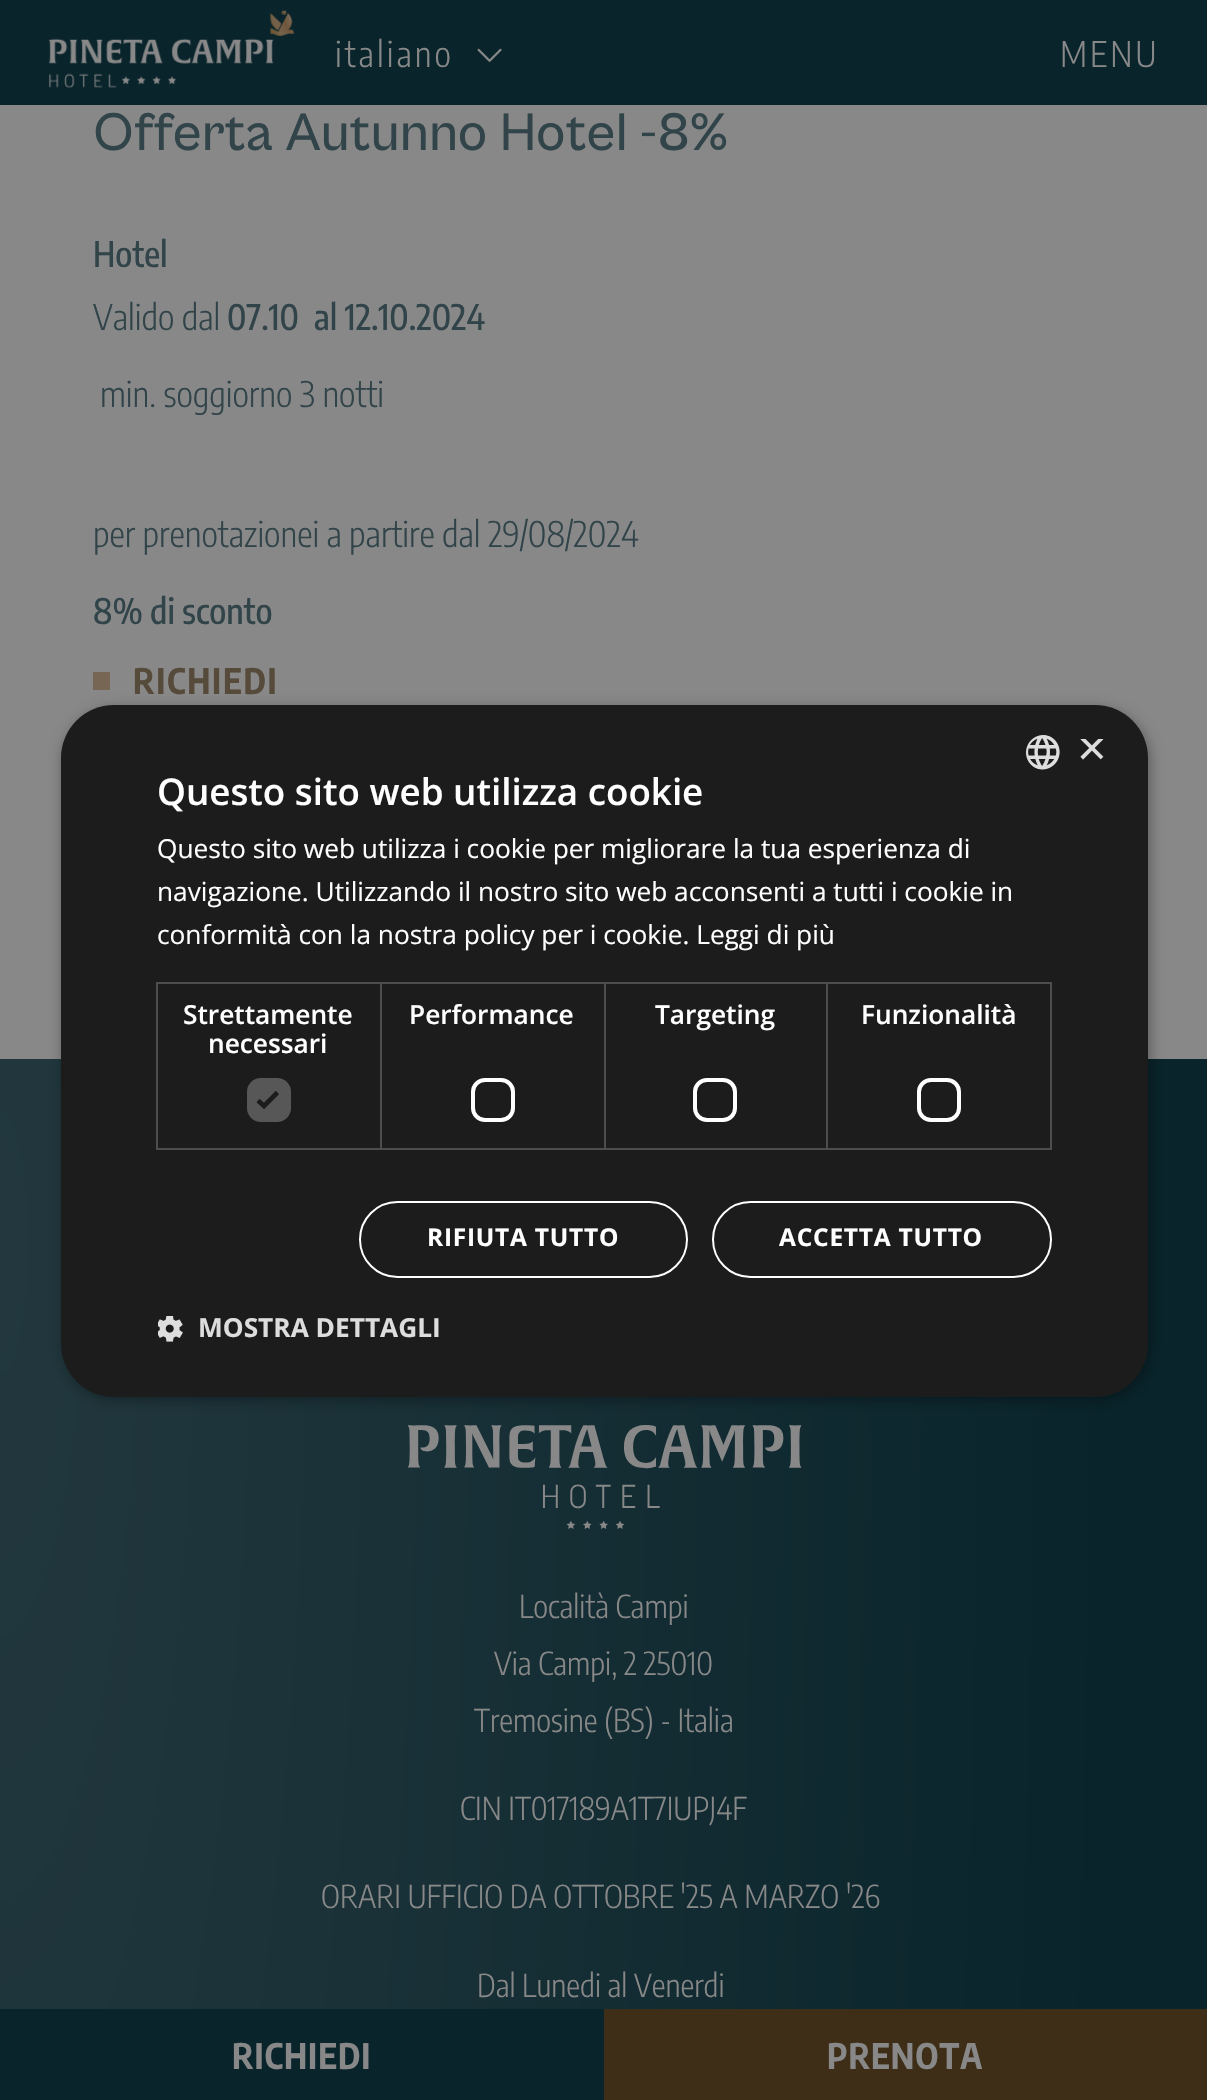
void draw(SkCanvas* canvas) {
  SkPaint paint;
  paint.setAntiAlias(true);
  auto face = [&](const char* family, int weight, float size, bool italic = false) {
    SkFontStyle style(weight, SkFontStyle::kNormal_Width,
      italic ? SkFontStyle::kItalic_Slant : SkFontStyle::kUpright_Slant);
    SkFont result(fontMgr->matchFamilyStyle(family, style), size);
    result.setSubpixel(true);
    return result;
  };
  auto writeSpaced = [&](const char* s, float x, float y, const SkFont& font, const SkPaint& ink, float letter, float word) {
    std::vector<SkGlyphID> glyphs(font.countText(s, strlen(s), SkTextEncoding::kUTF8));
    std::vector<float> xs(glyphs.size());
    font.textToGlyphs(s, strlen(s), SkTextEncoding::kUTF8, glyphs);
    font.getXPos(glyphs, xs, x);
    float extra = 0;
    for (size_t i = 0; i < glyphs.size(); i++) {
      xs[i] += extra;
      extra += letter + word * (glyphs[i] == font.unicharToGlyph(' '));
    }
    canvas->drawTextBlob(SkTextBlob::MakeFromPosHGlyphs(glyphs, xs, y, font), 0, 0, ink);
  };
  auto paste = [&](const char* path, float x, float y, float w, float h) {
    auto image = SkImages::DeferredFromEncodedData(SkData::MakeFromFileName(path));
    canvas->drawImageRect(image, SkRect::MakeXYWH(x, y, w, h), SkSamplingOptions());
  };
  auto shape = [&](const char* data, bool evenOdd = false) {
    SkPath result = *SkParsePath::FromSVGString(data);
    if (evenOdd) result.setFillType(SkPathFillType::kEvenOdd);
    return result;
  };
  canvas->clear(0xff888888);
  paint.setColor(0xff09242b);
  canvas->drawRect(SkRect::MakeXYWH(0, 0, 1207, 105), paint);
  paste("img/1.png", 49, 10, 246, 78);
  paste("img/2.png", 477, 48, 25, 14);
  paint.setColor(0xff776653);
  canvas->drawRect(SkRect::MakeXYWH(93, 672, 17, 18), paint);
  {
    const SkColor colors[] = {0xff22383e, 0xff09242b};
    const float stops[] = {0, 1};
    SkMatrix m = SkMatrix::Translate(0, 1243).preScale(1118, 5255);
    paint.setShader(SkGradientShader::MakeRadial({0, 0}, 1, colors, stops, 2, SkTileMode::kClamp, 0, &m));
    paint.setAlpha(255);
  }
  canvas->drawRect(SkRect::MakeXYWH(0, 1059, 1207, 950), paint);
  paint.setShader(nullptr);
  paint.setColor(0x59000000);
  paint.setMaskFilter(SkMaskFilter::MakeBlur(kNormal_SkBlurStyle, 7));
  canvas->drawRoundRect(SkRect::MakeXYWH(63, 709, 1087, 691), 53, 53, paint);
  paint.setMaskFilter(nullptr);
  paint.setColor(0xff1c1c1c);
  canvas->drawRoundRect(SkRect::MakeXYWH(61, 705, 1087, 692), 53, 53, paint);
  paste("img/3.png", 1026, 735, 34, 35);
  paint.setStroke(true);
  paint.setStrokeWidth(2);
  paint.setColor(0xff4d4d4d);
  canvas->drawRect(SkRect::MakeXYWH(157, 983, 224, 166), paint);
  paint.setStroke(false);
  paint.setColor(0xff575757);
  canvas->drawRoundRect(SkRect::MakeXYWH(247, 1078, 44, 44), 14, 14, paint);
  paint.setStroke(true);
  paint.setStrokeWidth(4.6f);
  paint.setColor(0xff1c1c1c);
  canvas->drawPath(shape("M258 1100.5L264 1106L277.5 1092.5"), paint);
  paint.setStrokeWidth(2);
  paint.setColor(0xff4d4d4d);
  canvas->drawRect(SkRect::MakeXYWH(381, 983, 224, 166), paint);
  paint.setStrokeWidth(4);
  paint.setColor(0xffffffff);
  canvas->drawRoundRect(SkRect::MakeXYWH(473, 1080, 40, 40), 12, 12, paint);
  paint.setStrokeWidth(2);
  paint.setColor(0xff4d4d4d);
  canvas->drawRect(SkRect::MakeXYWH(605, 983, 222, 166), paint);
  paint.setStrokeWidth(4);
  paint.setColor(0xffffffff);
  canvas->drawRoundRect(SkRect::MakeXYWH(695, 1080, 40, 40), 12, 12, paint);
  paint.setStrokeWidth(2);
  paint.setColor(0xff4d4d4d);
  canvas->drawRect(SkRect::MakeXYWH(827, 983, 224, 166), paint);
  paint.setStrokeWidth(4);
  paint.setColor(0xffffffff);
  canvas->drawRoundRect(SkRect::MakeXYWH(919, 1080, 40, 40), 12, 12, paint);
  paint.setStrokeWidth(2);
  canvas->drawRoundRect(SkRect::MakeXYWH(360, 1202, 327, 75), 37.5f, 37.5f, paint);
  canvas->drawRoundRect(SkRect::MakeXYWH(713, 1202, 338, 75), 37.5f, 37.5f, paint);
  paste("img/4.png", 158, 1316, 25, 26);
  paste("img/5.png", 408, 1425, 394, 104);
  paint.setStroke(false);
  paint.setColor(0xff09242b);
  canvas->drawRect(SkRect::MakeXYWH(0, 2009, 604, 91), paint);
  paint.setColor(0xff3e2e18);
  canvas->drawRect(SkRect::MakeXYWH(604, 2009, 603, 91), paint);
  auto f0 = face("Encode Sans Condensed", 300, 35);
  paint.setColor(0xff888888);
  writeSpaced("italiano", 335, 67, f0, paint, 3, 0);
  writeSpaced("MENU", 1060, 67, f0, paint, 3, 0);
  auto f1 = face("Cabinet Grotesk", 500, 54.6f);
  paint.setColor(0xff314449);
  canvas->drawString("Offerta Autunno Hotel -8%", 93, 150, f1, paint);
  auto f2 = face("Encode Sans Condensed", 500, 35);
  canvas->drawString("Hotel", 93, 267, f2, paint);
  canvas->drawString("Valido dal", 93, 330, f0, paint);
  canvas->drawString("07.10  al 12.10.2024", 227, 330, f2, paint);
  canvas->drawString("min. soggiorno 3 notti", 100, 407, f0, paint);
  canvas->drawString("per prenotazionei a partire dal 29/08/2024", 93, 547, f0, paint);
  canvas->drawString("8% di sconto", 93, 624, f2, paint);
  auto f3 = face("Encode Sans Condensed", 700, 35);
  paint.setColor(0xff564a3b);
  writeSpaced("RICHIEDI", 133, 694, f3, paint, 1.75f, 0);
  canvas->save();
  canvas->clipRect(SkRect::MakeXYWH(1078, 739, 26, 26));
  auto f4 = face("Liberation Sans", 400, 51);
  paint.setColor(0xffdddddd);
  canvas->drawString("×", 1077, 765, f4, paint);
  canvas->restore();
  auto f5 = face("Open Sans", 600, 36.75f);
  paint.setColor(0xffffffff);
  canvas->drawString("Questo sito web utilizza cookie", 157, 805, f5, paint);
  auto f6 = face("Open Sans", 400, 26.25f);
  {
    const struct { const char* s; float x, y; } items[] = {
      {"Questo sito web utilizza i cookie per migliorare la tua esperienza di", 157, 858},
      {"navigazione. Utilizzando il nostro sito web acconsenti a tutti i cookie in", 157, 901},
      {"conformità con la nostra policy per i cookie. Leggi di più", 157, 944},
    };
    for (auto [s, x, y] : items) {
      canvas->drawString(s, x, y, f6, paint);
    }
  }
  auto f7 = face("Open Sans", 600, 26.25f);
  {
    const struct { const char* s; float x, y; } items[] = {
      {"Strettamente", 183, 1024},
      {"necessari", 208, 1053},
      {"Performance", 409, 1024},
      {"Targeting", 655, 1024},
      {"Funzionalità", 861, 1024},
    };
    for (auto [s, x, y] : items) {
      canvas->drawString(s, x, y, f7, paint);
    }
  }
  auto f8 = face("Open Sans", 700, 24.5f);
  writeSpaced("RIFIUTA TUTTO", 427, 1246, f8, paint, 0.75f, 0);
  writeSpaced("ACCETTA TUTTO", 779, 1246, f8, paint, 0.75f, 0);
  auto f9 = face("Open Sans", 700, 26.25f);
  paint.setColor(0xffdddddd);
  canvas->drawString("MOSTRA DETTAGLI", 198, 1337, f9, paint);
  auto f10 = face("Encode Sans Condensed", 300, 31.5f);
  paint.setColor(0xff888888);
  {
    const struct { const char* s; float x, y; } items[] = {
      {"Località Campi", 519, 1618},
      {"Via Campi, 2 25010", 494, 1675},
      {"Tremosine (BS) - Italia", 474, 1732},
      {"CIN IT017189A1T7IUPJ4F", 460, 1820},
      {"ORARI UFFICIO DA OTTOBRE '25 A MARZO '26", 321, 1908},
      {"Dal Lunedi al Venerdi", 477, 1997},
    };
    for (auto [s, x, y] : items) {
      canvas->drawString(s, x, y, f10, paint);
    }
  }
  writeSpaced("RICHIEDI", 232, 2069, f3, paint, 1, 0);
  writeSpaced("PRENOTA", 827, 2069, f3, paint, 1, 0);
}
